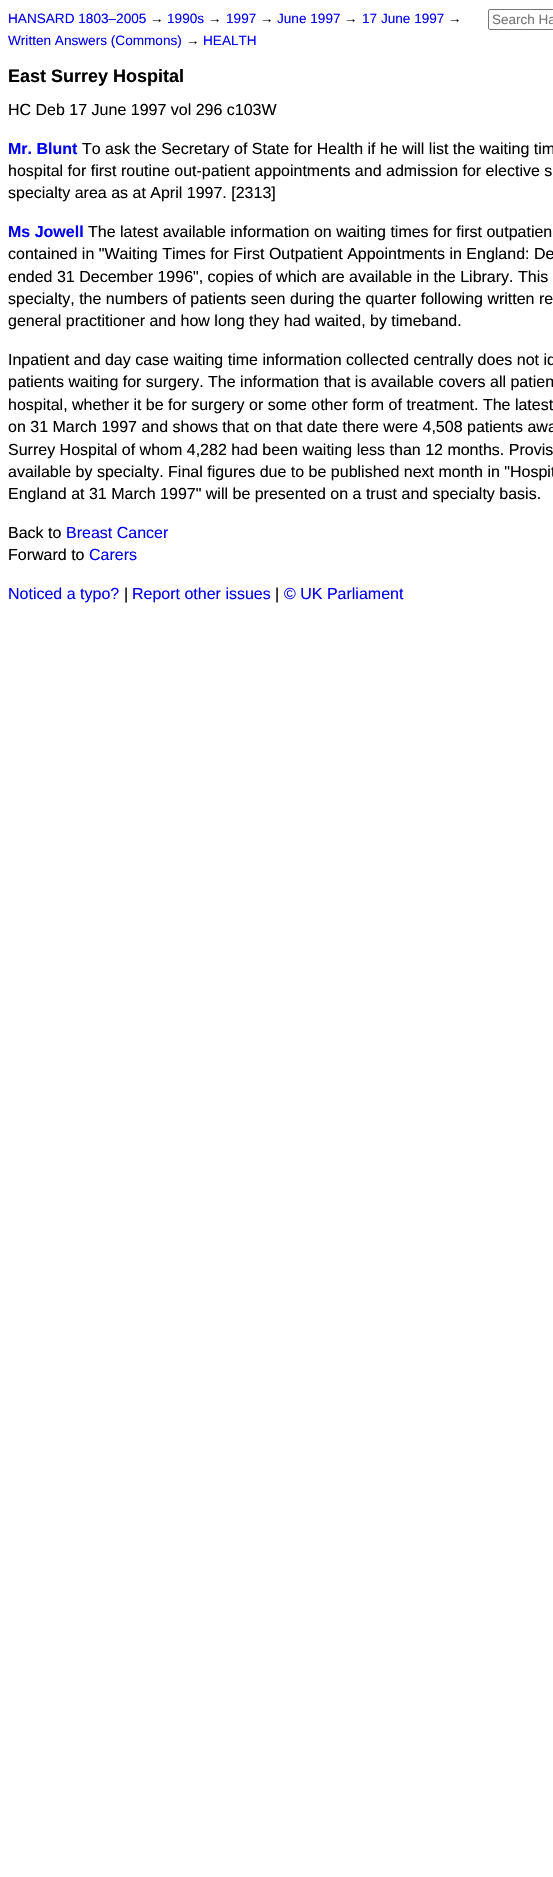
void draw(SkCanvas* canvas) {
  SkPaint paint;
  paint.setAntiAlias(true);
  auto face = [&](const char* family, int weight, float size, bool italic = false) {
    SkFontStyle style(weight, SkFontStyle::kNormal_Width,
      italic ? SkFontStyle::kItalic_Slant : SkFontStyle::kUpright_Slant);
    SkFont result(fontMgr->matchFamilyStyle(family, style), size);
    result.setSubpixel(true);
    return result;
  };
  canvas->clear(0xffffffff);
  paint.setStroke(true);
  paint.setStrokeWidth(1);
  paint.setColor(0xff767676);
  canvas->drawRoundRect(SkRect::MakeXYWH(488.5f, 9.5f, 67, 20), 1.5f, 1.5f, paint);
  auto f0 = face("Liberation Sans", 400, 13.6f);
  paint.setStroke(false);
  paint.setColor(0xff0000ee);
  canvas->drawString("HANSARD 1803–2005", 8, 23, f0, paint);
  paint.setColor(0xff000000);
  canvas->drawString("→", 150, 23, f0, paint);
  paint.setColor(0xff0000ee);
  canvas->drawString("1990s", 167, 23, f0, paint);
  paint.setColor(0xff000000);
  canvas->drawString("→", 208, 23, f0, paint);
  paint.setColor(0xff0000ee);
  canvas->drawString("1997", 226, 23, f0, paint);
  paint.setColor(0xff000000);
  canvas->drawString("→", 260, 23, f0, paint);
  paint.setColor(0xff0000ee);
  canvas->drawString("June 1997", 277, 23, f0, paint);
  paint.setColor(0xff000000);
  canvas->drawString("→", 344, 23, f0, paint);
  paint.setColor(0xff0000ee);
  canvas->drawString("17 June 1997", 362, 23, f0, paint);
  paint.setColor(0xff000000);
  canvas->drawString("→", 448, 23, f0, paint);
  paint.setColor(0xff0000ee);
  canvas->drawString("Written Answers (Commons)", 8, 45, f0, paint);
  paint.setColor(0xff000000);
  canvas->drawString("→", 186, 45, f0, paint);
  paint.setColor(0xff0000ee);
  canvas->drawString("HEALTH", 203, 45, f0, paint);
  auto f1 = face("Liberation Sans", 400, 13.5f);
  paint.setColor(0xff757575);
  canvas->drawString("Search Ha", 492, 24, f1, paint);
  auto f2 = face("Liberation Sans", 700, 18);
  paint.setColor(0xff000000);
  canvas->drawString("East Surrey Hospital", 8, 82, f2, paint);
  auto f3 = face("Liberation Sans", 400, 16);
  canvas->drawString("HC Deb 17 June 1997 vol 296 c103W", 8, 115, f3, paint);
  auto f4 = face("Liberation Sans", 700, 16);
  paint.setColor(0xff0000ee);
  canvas->drawString("Mr. Blunt", 8, 154, f4, paint);
  paint.setColor(0xff000000);
  {
    const struct { const char* s; float x, y; } items[] = {
      {"To ask the Secretary of State for Health if he will list the waiting tim", 82, 154},
      {"hospital for first routine out-patient appointments and admission for elective s", 8, 176},
      {"specialty area as at April 1997. [2313]", 8, 198},
    };
    for (auto [s, x, y] : items) {
      canvas->drawString(s, x, y, f3, paint);
    }
  }
  paint.setColor(0xff0000ee);
  canvas->drawString("Ms Jowell", 8, 237, f4, paint);
  paint.setColor(0xff000000);
  {
    const struct { const char* s; float x, y; } items[] = {
      {"The latest available information on waiting times for first outpatien", 88, 237},
      {"contained in \"Waiting Times for First Outpatient Appointments in England: De", 8, 259},
      {"ended 31 December 1996\", copies of which are available in the Library. This", 8, 282},
      {"specialty, the numbers of patients seen during the quarter following written re", 8, 304},
      {"general practitioner and how long they had waited, by timeband.", 8, 326},
      {"Inpatient and day case waiting time information collected centrally does not id", 8, 365},
      {"patients waiting for surgery. The information that is available covers all patien", 8, 387},
      {"hospital, whether it be for surgery or some other form of treatment. The latest", 8, 410},
      {"on 31 March 1997 and shows that on that date there were 4,508 patients awa", 8, 432},
      {"Surrey Hospital of whom 4,282 had been waiting less than 12 months. Provis", 8, 455},
      {"available by specialty. Final figures due to be published next month in \"Hospit", 8, 477},
      {"England at 31 March 1997\" will be presented on a trust and specialty basis.", 8, 499},
      {"Back to", 8, 538},
    };
    for (auto [s, x, y] : items) {
      canvas->drawString(s, x, y, f3, paint);
    }
  }
  paint.setColor(0xff0000ee);
  canvas->drawString("Breast Cancer", 66, 538, f3, paint);
  paint.setColor(0xff000000);
  canvas->drawString("Forward to", 8, 560, f3, paint);
  paint.setColor(0xff0000ee);
  canvas->drawString("Carers", 89, 560, f3, paint);
  canvas->drawString("Noticed a typo?", 8, 599, f3, paint);
  paint.setColor(0xff000000);
  canvas->drawString("|", 124, 599, f3, paint);
  paint.setColor(0xff0000ee);
  canvas->drawString("Report other issues", 132, 599, f3, paint);
  paint.setColor(0xff000000);
  canvas->drawString("|", 275, 599, f3, paint);
  paint.setColor(0xff0000ee);
  canvas->drawString("© UK Parliament", 284, 599, f3, paint);
}
